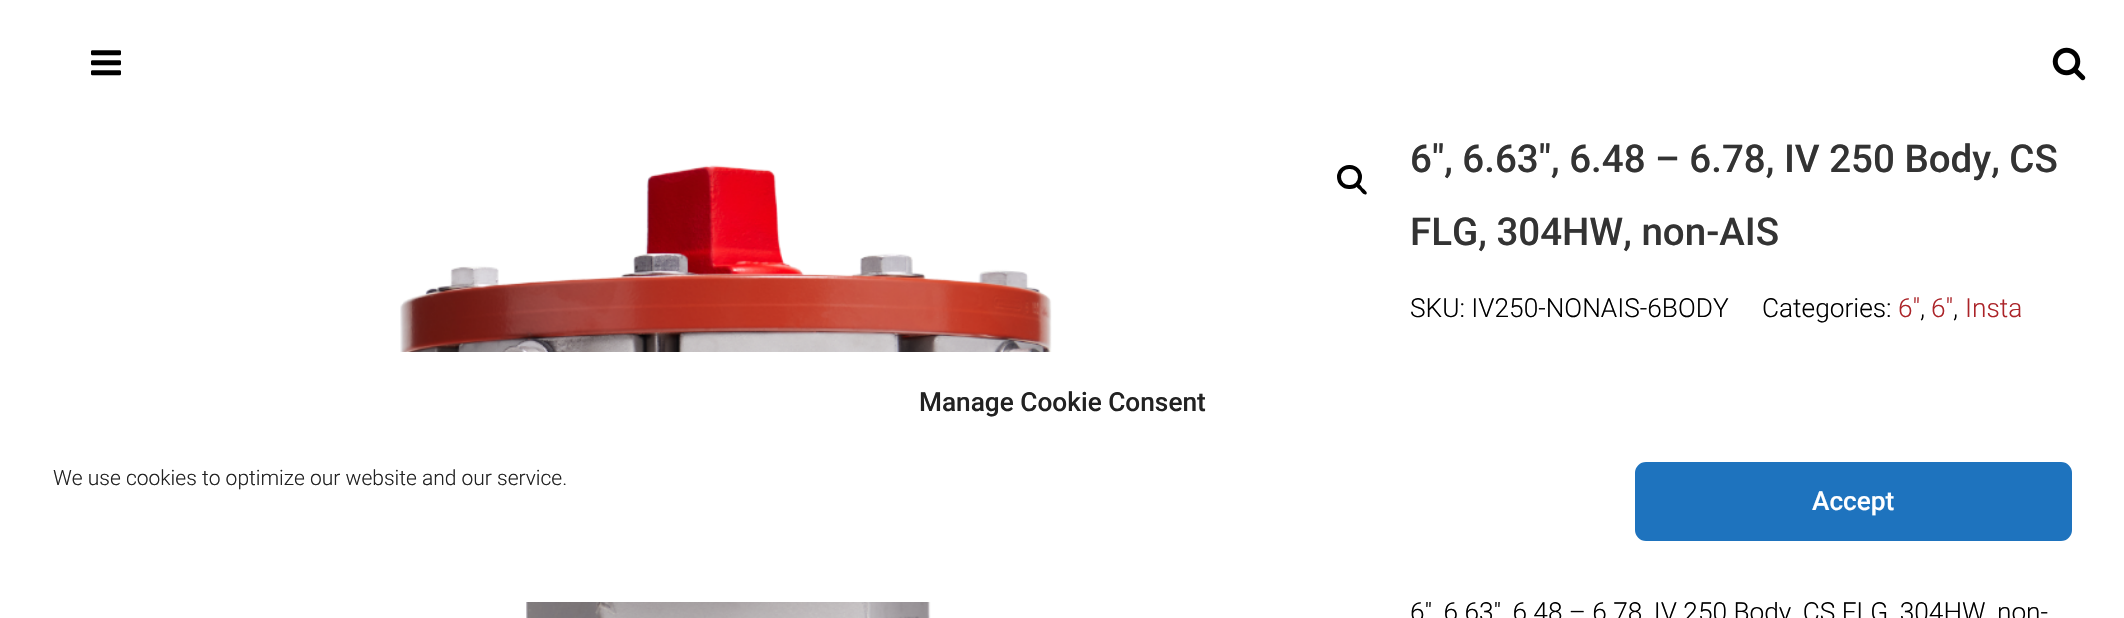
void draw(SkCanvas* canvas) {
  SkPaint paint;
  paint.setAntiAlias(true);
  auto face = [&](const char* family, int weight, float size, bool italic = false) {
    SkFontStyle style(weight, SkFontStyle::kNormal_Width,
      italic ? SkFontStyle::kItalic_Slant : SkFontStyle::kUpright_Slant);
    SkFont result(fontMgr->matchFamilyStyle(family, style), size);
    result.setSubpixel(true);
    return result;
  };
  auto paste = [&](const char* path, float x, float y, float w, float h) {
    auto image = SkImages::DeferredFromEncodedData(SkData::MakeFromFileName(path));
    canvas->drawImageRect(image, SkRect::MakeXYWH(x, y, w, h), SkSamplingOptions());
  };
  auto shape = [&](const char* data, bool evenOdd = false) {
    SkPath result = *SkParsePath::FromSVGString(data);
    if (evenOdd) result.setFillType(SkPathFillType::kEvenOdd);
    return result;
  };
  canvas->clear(0xffffffff);
  paste("img/1.png", 91, 50, 30, 26);
  paste("img/2.png", 2052, 47, 34, 34);
  paste("img/3.png", 400, 165, 652, 453);
  paint.setStroke(true);
  paint.setStrokeWidth(4);
  paint.setColor(0xff000000);
  canvas->drawRoundRect(SkRect::MakeXYWH(1339, 167, 21, 20), 10, 10, paint);
  paint.setStroke(false);
  canvas->drawPath(shape("M1356.5 184C1358.5 182 1361.5 186.5 1362.5 188C1363.5 189 1368 192 1366.5 194C1364.5 196 1361 191.5 1360 190C1359 189 1354.5 186 1356.5 184Z"), paint);
  auto f0 = face("Roboto", 500, 38.5f);
  paint.setColor(0xff333333);
  canvas->drawString("6″, 6.63″, 6.48 – 6.78, IV 250 Body, CS", 1410, 172, f0, paint);
  canvas->drawString("FLG, 304HW, non-AIS", 1410, 245, f0, paint);
  auto f1 = face("Roboto", 300, 26.25f);
  paint.setColor(0xff000000);
  canvas->drawString("SKU: IV250-NONAIS-6BODY", 1410, 317, f1, paint);
  canvas->drawString("Categories:", 1762, 317, f1, paint);
  paint.setColor(0xffab2328);
  canvas->drawString("6\"", 1898, 317, f1, paint);
  paint.setColor(0xff000000);
  canvas->drawString(",", 1920, 317, f1, paint);
  paint.setColor(0xffab2328);
  canvas->drawString("6\"", 1931, 317, f1, paint);
  paint.setColor(0xff000000);
  canvas->drawString(",", 1953, 317, f1, paint);
  paint.setColor(0xffab2328);
  canvas->drawString("Insta", 1965, 317, f1, paint);
  paint.setColor(0xff000000);
  canvas->drawString("6″, 6.63″, 6.48 – 6.78, IV 250 Body, CS FLG, 304HW, non-", 1410, 621, f1, paint);
  paint.setColor(0xffffffff);
  canvas->drawRoundRect(SkRect::MakeXYWH(18, 352, 2089, 250), 21, 21, paint);
  auto f2 = face("Roboto", 500, 26.25f);
  paint.setColor(0xff222222);
  canvas->drawString("Manage Cookie Consent", 919, 411, f2, paint);
  auto f3 = face("Roboto", 300, 21);
  canvas->drawString("We use cookies to optimize our website and our service.", 53, 485, f3, paint);
  paint.setColor(0xff1e73be);
  canvas->drawRoundRect(SkRect::MakeXYWH(1636, 463, 435, 77), 10, 10, paint);
  paint.setStroke(true);
  paint.setStrokeWidth(2);
  canvas->drawRoundRect(SkRect::MakeXYWH(1636, 463, 435, 77), 10, 10, paint);
  paint.setStroke(false);
  paint.setColor(0xffffffff);
  canvas->drawString("Accept", 1812, 510, f2, paint);
}
